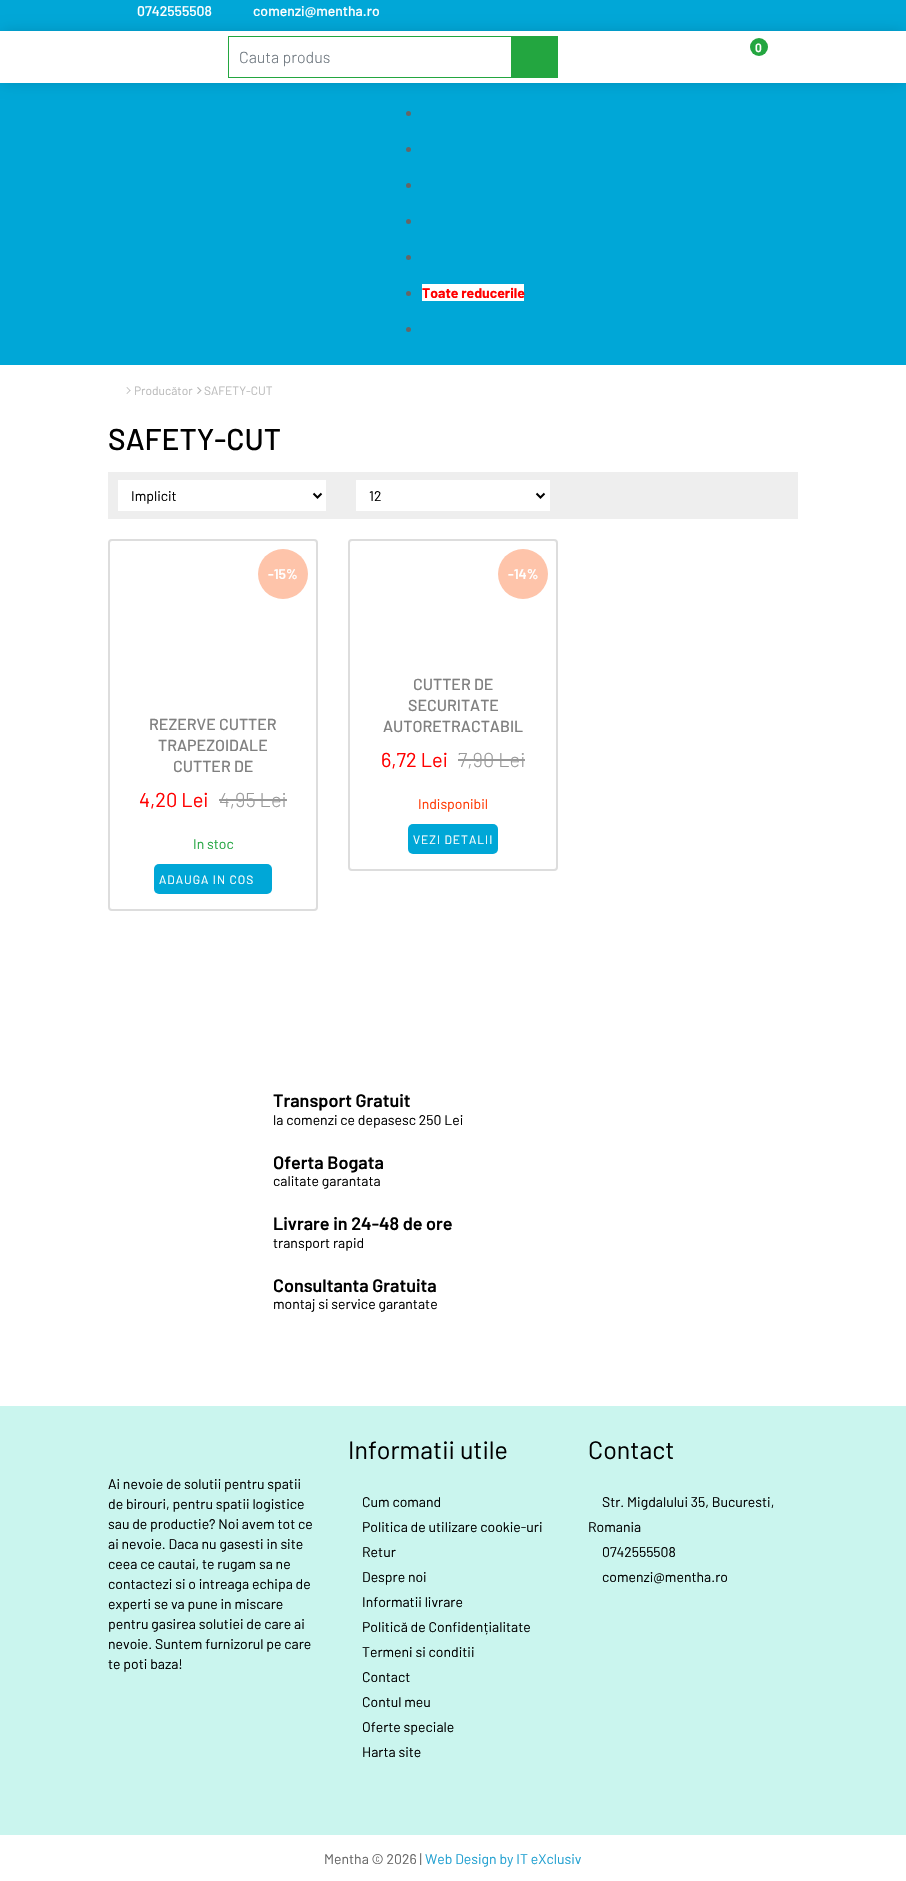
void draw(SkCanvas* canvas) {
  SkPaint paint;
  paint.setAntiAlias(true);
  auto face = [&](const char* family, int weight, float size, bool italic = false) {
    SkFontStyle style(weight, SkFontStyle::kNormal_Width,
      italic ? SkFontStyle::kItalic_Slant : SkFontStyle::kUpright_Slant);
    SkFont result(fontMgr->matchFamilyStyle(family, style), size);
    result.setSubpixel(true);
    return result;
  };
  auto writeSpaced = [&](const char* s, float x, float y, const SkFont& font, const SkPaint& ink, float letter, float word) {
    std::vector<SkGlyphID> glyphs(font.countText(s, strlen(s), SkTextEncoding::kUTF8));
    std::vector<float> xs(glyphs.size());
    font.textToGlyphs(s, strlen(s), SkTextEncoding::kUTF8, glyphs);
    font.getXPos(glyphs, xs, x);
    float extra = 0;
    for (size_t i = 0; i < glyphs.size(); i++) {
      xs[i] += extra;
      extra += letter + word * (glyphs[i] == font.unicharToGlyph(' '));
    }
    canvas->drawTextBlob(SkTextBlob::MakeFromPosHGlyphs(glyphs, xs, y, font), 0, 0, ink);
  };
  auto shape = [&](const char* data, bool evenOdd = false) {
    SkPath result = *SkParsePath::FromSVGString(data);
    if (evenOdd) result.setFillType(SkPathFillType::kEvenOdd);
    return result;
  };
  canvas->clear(0xffffffff);
  paint.setColor(0xff01a7d7);
  canvas->drawRect(SkRect::MakeXYWH(0, 0, 906, 31), paint);
  paint.setColor(0xff00a7d7);
  canvas->drawRect(SkRect::MakeXYWH(0, 83, 906, 282), paint);
  paint.setColor(0x2e000000);
  paint.setMaskFilter(SkMaskFilter::MakeBlur(kNormal_SkBlurStyle, 8));
  canvas->drawRect(SkRect::MakeXYWH(2, 33, 902, 48), paint);
  paint.setMaskFilter(nullptr);
  paint.setColor(0xffffffff);
  canvas->drawRect(SkRect::MakeXYWH(0, 31, 906, 52), paint);
  paint.setColor(0xff23a640);
  canvas->drawCircle(759, 47, 9, paint);
  paint.setStroke(true);
  paint.setStrokeWidth(1);
  canvas->drawRect(SkRect::MakeXYWH(228.5f, 36.5f, 329, 41), paint);
  paint.setStroke(false);
  canvas->drawRect(SkRect::MakeXYWH(511, 37, 46, 40), paint);
  paint.setColor(0xff666666);
  canvas->drawCircle(408.5f, 113.5f, 2.5f, paint);
  canvas->drawCircle(408.5f, 149.5f, 2.5f, paint);
  canvas->drawCircle(408.5f, 185.5f, 2.5f, paint);
  canvas->drawCircle(408.5f, 221.5f, 2.5f, paint);
  canvas->drawCircle(408.5f, 257.5f, 2.5f, paint);
  canvas->drawCircle(408.5f, 293.5f, 2.5f, paint);
  paint.setColor(0xffffffff);
  canvas->drawRect(SkRect::MakeXYWH(422, 284, 102, 17), paint);
  paint.setColor(0xff666666);
  canvas->drawCircle(408.5f, 329.5f, 2.5f, paint);
  paint.setColor(0xffb1b1b1);
  canvas->drawPath(shape("M126.5 387.5L127 387L130.5 390.5L130 391Z"), paint);
  canvas->drawPath(shape("M126.5 393.5L130 390L130.5 390.5L127 394Z"), paint);
  canvas->drawPath(shape("M197 387.5L198 387L201.5 390.5L200.5 391Z"), paint);
  canvas->drawPath(shape("M197 393.5L200.5 390L201.5 390.5L198 394Z"), paint);
  paint.setColor(0xffeeeeee);
  canvas->drawRect(SkRect::MakeXYWH(108, 472, 690, 47), paint);
  paint.setColor(0xffffffff);
  canvas->drawRect(SkRect::MakeXYWH(118, 480, 208, 31), paint);
  paint.setStroke(true);
  paint.setStrokeWidth(2);
  paint.setColor(0xff000000);
  canvas->drawPath(shape("M313.5 493.5L317.5 497.5L321.5 493.5"), paint);
  paint.setStroke(false);
  paint.setColor(0xffffffff);
  canvas->drawRect(SkRect::MakeXYWH(356, 480, 194, 31), paint);
  paint.setStroke(true);
  paint.setColor(0xff000000);
  canvas->drawPath(shape("M536.5 493.5L540.5 497.5L544.5 493.5"), paint);
  paint.setColor(0xffdddddd);
  canvas->drawRoundRect(SkRect::MakeXYWH(109, 540, 208, 370), 3, 3, paint);
  paint.setStroke(false);
  paint.setColor(0xfffec4aa);
  canvas->drawCircle(283, 574, 25, paint);
  paint.setColor(0xff999999);
  canvas->drawRect(SkRect::MakeXYWH(219, 799, 68, 2), paint);
  paint.setColor(0xff00a7d7);
  canvas->drawRoundRect(SkRect::MakeXYWH(154, 864, 118, 30), 5, 5, paint);
  paint.setStroke(true);
  paint.setColor(0xffdddddd);
  canvas->drawRoundRect(SkRect::MakeXYWH(349, 540, 208, 330), 3, 3, paint);
  paint.setStroke(false);
  paint.setColor(0xfffec4aa);
  canvas->drawCircle(523, 574, 25, paint);
  paint.setColor(0xff999999);
  canvas->drawRect(SkRect::MakeXYWH(458, 759, 67, 2), paint);
  paint.setColor(0xff00a7d7);
  canvas->drawRoundRect(SkRect::MakeXYWH(408, 824, 90, 30), 5, 5, paint);
  paint.setColor(0xffcaf5ee);
  canvas->drawRect(SkRect::MakeXYWH(0, 1406, 906, 429), paint);
  auto f0 = face("Barlow", 500, 14);
  paint.setColor(0xffffffff);
  canvas->drawString("0742555508", 137, 16, f0, paint);
  canvas->drawString("comenzi@mentha.ro", 253, 16, f0, paint);
  auto f1 = face("Barlow", 600, 12);
  canvas->drawString("0", 755, 52, f1, paint);
  auto f2 = face("Barlow", 300, 16);
  paint.setColor(0xff6c757d);
  canvas->drawString("Cauta produs", 239, 63, f2, paint);
  auto f3 = face("Barlow", 700, 14);
  paint.setColor(0xffff0000);
  canvas->drawString("Toate reducerile", 422, 298, f3, paint);
  auto f4 = face("Barlow", 400, 12);
  paint.setColor(0xffbbbbbb);
  canvas->drawString("Producător", 134, 395, f4, paint);
  canvas->drawString("SAFETY-CUT", 204, 395, f4, paint);
  auto f5 = face("Barlow", 500, 30);
  paint.setColor(0xff000000);
  canvas->drawString("SAFETY-CUT", 108, 450, f5, paint);
  auto f6 = face("Barlow", 400, 14);
  canvas->drawString("Implicit", 131, 501, f6, paint);
  canvas->drawString("12", 369, 501, f6, paint);
  auto f7 = face("Barlow", 600, 14);
  paint.setColor(0xffffffff);
  canvas->drawString("-15%", 268, 579, f7, paint);
  auto f8 = face("Barlow", 500, 16);
  paint.setColor(0xff808080);
  {
    const struct { const char* s; float x, y; } items[] = {
      {"REZERVE CUTTER", 149, 730},
      {"TRAPEZOIDALE", 158, 751},
      {"CUTTER DE", 173, 772},
    };
    for (auto [s, x, y] : items) {
      canvas->drawString(s, x, y, f8, paint);
    }
  }
  auto f9 = face("Barlow", 400, 20);
  paint.setColor(0xffff0000);
  canvas->drawString("4,20 Lei", 139, 807, f9, paint);
  auto f10 = face("Barlow", 300, 20);
  paint.setColor(0xff999999);
  canvas->drawString("4,95 Lei", 219, 807, f10, paint);
  paint.setColor(0xff28a745);
  canvas->drawString("In stoc", 193, 849, f6, paint);
  paint.setColor(0xffffffff);
  writeSpaced("ADAUGA IN COS", 159, 884, f4, paint, 1, 0);
  canvas->drawString("-14%", 508, 579, f7, paint);
  paint.setColor(0xff808080);
  {
    const struct { const char* s; float x, y; } items[] = {
      {"CUTTER DE", 413, 690},
      {"SECURITATE", 408, 711},
      {"AUTORETRACTABIL", 383, 732},
    };
    for (auto [s, x, y] : items) {
      canvas->drawString(s, x, y, f8, paint);
    }
  }
  paint.setColor(0xffff0000);
  canvas->drawString("6,72 Lei", 381, 767, f9, paint);
  paint.setColor(0xff999999);
  canvas->drawString("7,90 Lei", 458, 767, f10, paint);
  paint.setColor(0xffff3700);
  canvas->drawString("Indisponibil", 418, 809, f6, paint);
  paint.setColor(0xffffffff);
  writeSpaced("VEZI DETALII", 413, 844, f4, paint, 1, 0);
  auto f11 = face("Barlow", 600, 18);
  paint.setColor(0xff000000);
  canvas->drawString("Transport Gratuit", 273, 1107, f11, paint);
  canvas->drawString("la comenzi ce depasesc 250 Lei", 273, 1125, f6, paint);
  canvas->drawString("Oferta Bogata", 273, 1169, f11, paint);
  canvas->drawString("calitate garantata", 273, 1186, f6, paint);
  canvas->drawString("Livrare in 24-48 de ore", 273, 1230, f11, paint);
  canvas->drawString("transport rapid", 273, 1248, f6, paint);
  canvas->drawString("Consultanta Gratuita", 273, 1292, f11, paint);
  {
    const struct { const char* s; float x, y; } items[] = {
      {"montaj si service garantate", 273, 1309},
      {"Ai nevoie de solutii pentru spatii", 108, 1489},
      {"de birouri, pentru spatii logistice", 108, 1509},
      {"sau de productie? Noi avem tot ce", 108, 1529},
      {"ai nevoie. Daca nu gasesti in site", 108, 1549},
      {"ceea ce cautai, te rugam sa ne", 108, 1569},
      {"contactezi si o intreaga echipa de", 108, 1589},
      {"experti se va pune in miscare", 108, 1609},
      {"pentru gasirea solutiei de care ai", 108, 1629},
      {"nevoie. Suntem furnizorul pe care", 108, 1649},
      {"te poti baza!", 108, 1669},
    };
    for (auto [s, x, y] : items) {
      canvas->drawString(s, x, y, f6, paint);
    }
  }
  auto f12 = face("Barlow", 400, 25);
  canvas->drawString("Informatii utile", 348, 1459, f12, paint);
  {
    const struct { const char* s; float x, y; } items[] = {
      {"Cum comand", 362, 1507},
      {"Politica de utilizare cookie-uri", 362, 1532},
      {"Retur", 362, 1557},
      {"Despre noi", 362, 1582},
      {"Informatii livrare", 362, 1607},
      {"Politică de Confidențialitate", 362, 1632},
      {"Termeni si conditii", 362, 1657},
      {"Contact", 362, 1682},
      {"Contul meu", 362, 1707},
      {"Oferte speciale", 362, 1732},
      {"Harta site", 362, 1757},
    };
    for (auto [s, x, y] : items) {
      canvas->drawString(s, x, y, f6, paint);
    }
  }
  canvas->drawString("Contact", 588, 1459, f12, paint);
  {
    const struct { const char* s; float x, y; } items[] = {
      {"Str. Migdalului 35, Bucuresti,", 602, 1507},
      {"Romania", 588, 1532},
      {"0742555508", 602, 1557},
      {"comenzi@mentha.ro", 602, 1582},
    };
    for (auto [s, x, y] : items) {
      canvas->drawString(s, x, y, f6, paint);
    }
  }
  paint.setColor(0xff666666);
  canvas->drawString("Mentha © 2026 |", 324, 1864, f6, paint);
  paint.setColor(0xff23a1d1);
  canvas->drawString("Web Design by IT eXclusiv", 425, 1864, f6, paint);
}
